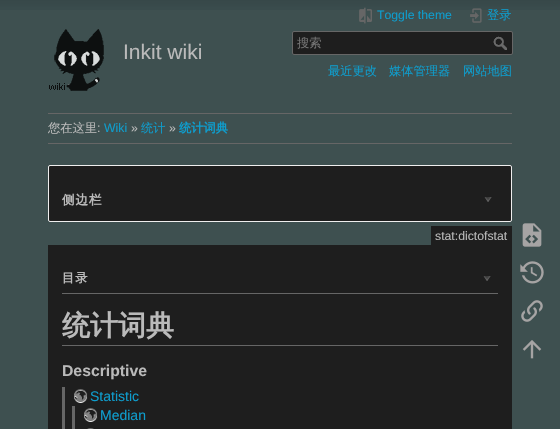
void draw(SkCanvas* canvas) {
  SkPaint paint;
  paint.setAntiAlias(true);
  auto face = [&](const char* family, int weight, float size, bool italic = false) {
    SkFontStyle style(weight, SkFontStyle::kNormal_Width,
      italic ? SkFontStyle::kItalic_Slant : SkFontStyle::kUpright_Slant);
    SkFont result(fontMgr->matchFamilyStyle(family, style), size);
    result.setSubpixel(true);
    return result;
  };
  auto writeSpaced = [&](const char* s, float x, float y, const SkFont& font, const SkPaint& ink, float letter, float word) {
    std::vector<SkGlyphID> glyphs(font.countText(s, strlen(s), SkTextEncoding::kUTF8));
    std::vector<float> xs(glyphs.size());
    font.textToGlyphs(s, strlen(s), SkTextEncoding::kUTF8, glyphs);
    font.getXPos(glyphs, xs, x);
    float extra = 0;
    for (size_t i = 0; i < glyphs.size(); i++) {
      xs[i] += extra;
      extra += letter + word * (glyphs[i] == font.unicharToGlyph(' '));
    }
    canvas->drawTextBlob(SkTextBlob::MakeFromPosHGlyphs(glyphs, xs, y, font), 0, 0, ink);
  };
  auto paste = [&](const char* path, float x, float y, float w, float h) {
    auto image = SkImages::DeferredFromEncodedData(SkData::MakeFromFileName(path));
    canvas->drawImageRect(image, SkRect::MakeXYWH(x, y, w, h), SkSamplingOptions());
  };
  canvas->clear(0xff3e5050);
  paste("img/1.png", 0, 0, 560, 10);
  paste("img/2.png", 49, 29, 55, 62);
  paste("img/3.png", 359, 7, 13, 17);
  paste("img/4.png", 470, 8, 12, 15);
  paint.setColor(0xff1e1e1e);
  canvas->drawRoundRect(SkRect::MakeXYWH(292.5f, 31.5f, 220, 23), 1.5f, 1.5f, paint);
  paint.setStroke(true);
  paint.setStrokeWidth(1);
  paint.setColor(0xff666666);
  canvas->drawRoundRect(SkRect::MakeXYWH(292.5f, 31.5f, 220, 23), 1.5f, 1.5f, paint);
  paste("img/5.png", 493, 36, 14, 14);
  paint.setStroke(false);
  canvas->drawRect(SkRect::MakeXYWH(48, 113, 464, 1), paint);
  canvas->drawRect(SkRect::MakeXYWH(48, 143, 464, 1), paint);
  paint.setColor(0xff1e1e1e);
  canvas->drawRoundRect(SkRect::MakeXYWH(48.5f, 165.5f, 463, 56), 1.5f, 1.5f, paint);
  paint.setStroke(true);
  paint.setColor(0xffeeeeee);
  canvas->drawRoundRect(SkRect::MakeXYWH(48.5f, 165.5f, 463, 56), 1.5f, 1.5f, paint);
  paste("img/6.png", 484, 197, 8, 5);
  paint.setStroke(false);
  {
    const struct { float x, y, w, h; SkColor color; } items[] = {
      {431, 226, 81, 19, 0xff1e1e1e},
      {48, 245, 464, 184, 0xff1e1e1e},
      {62, 293, 436, 1, 0xff666666},
    };
    for (auto [x, y, w, h, color] : items) {
      paint.setColor(color);
      canvas->drawRect(SkRect::MakeXYWH(x, y, w, h), paint);
    }
  }
  paste("img/6.png", 483, 276, 8, 5);
  canvas->drawRect(SkRect::MakeXYWH(62, 345, 436, 1), paint);
  canvas->drawRect(SkRect::MakeXYWH(62, 387, 3, 42), paint);
  paste("img/7.png", 74, 389, 14, 14);
  canvas->drawRect(SkRect::MakeXYWH(72, 406, 3, 23), paint);
  paste("img/7.png", 84, 408, 14, 14);
  paste("img/8.png", 87, 428, 7, 1);
  paste("img/9.png", 522, 223, 20, 24);
  paste("img/10.png", 520, 261, 24, 23);
  paste("img/11.png", 521, 300, 22, 22);
  paste("img/12.png", 522, 340, 20, 19);
  auto f0 = face("Liberation Sans", 400, 21);
  paint.setColor(0xffbababa);
  canvas->drawString("Inkit wiki", 123, 59, f0, paint);
  auto f1 = face("Liberation Sans", 400, 12.25f);
  paint.setColor(0xff0e9dcd);
  canvas->drawString("Toggle theme", 377, 19, f1, paint);
  auto f2 = face("WenQuanYi Zen Hei", 500, 12.25f);
  canvas->drawString("登录", 487, 19, f2, paint);
  paint.setColor(0xff757575);
  canvas->drawString("搜索", 297, 47, f2, paint);
  paint.setColor(0xff0e9dcd);
  {
    const struct { const char* s; float x, y; } items[] = {
      {"最近更改", 328, 75},
      {"媒体管理器", 389, 75},
      {"网站地图", 463, 75},
    };
    for (auto [s, x, y] : items) {
      canvas->drawString(s, x, y, f2, paint);
    }
  }
  paint.setColor(0xffbababa);
  canvas->drawString("您在这里", 48, 132, f2, paint);
  canvas->drawString(":", 97, 132, f1, paint);
  paint.setColor(0xff0e9dcd);
  canvas->drawString("Wiki", 104, 132, f1, paint);
  paint.setColor(0xffbababa);
  canvas->drawString("»", 131, 132, f1, paint);
  paint.setColor(0xff0e9dcd);
  canvas->drawString("统计", 141, 132, f2, paint);
  paint.setColor(0xffbababa);
  canvas->drawString("»", 169, 132, f1, paint);
  auto f3 = face("WenQuanYi Zen Hei", 700, 12.25f);
  paint.setColor(0xff0e9dcd);
  canvas->drawString("统计词典", 179, 132, f3, paint);
  auto f4 = face("WenQuanYi Zen Hei", 700, 12.5f);
  paint.setColor(0xffbababa);
  writeSpaced("侧边栏", 62, 204, f4, paint, 1, 0);
  canvas->drawString("stat:dictofstat", 435, 240, f1, paint);
  writeSpaced("目录", 62, 282, f3, paint, 1, 0);
  auto f5 = face("WenQuanYi Zen Hei", 700, 28);
  canvas->drawString("统计词典", 62, 335, f5, paint);
  auto f6 = face("Liberation Sans", 700, 15.75f);
  canvas->drawString("Descriptive", 62, 376, f6, paint);
  auto f7 = face("Liberation Sans", 400, 14);
  paint.setColor(0xff0e9dcd);
  canvas->drawString("Statistic", 90, 401, f7, paint);
  canvas->drawString("Median", 100, 420, f7, paint);
}
